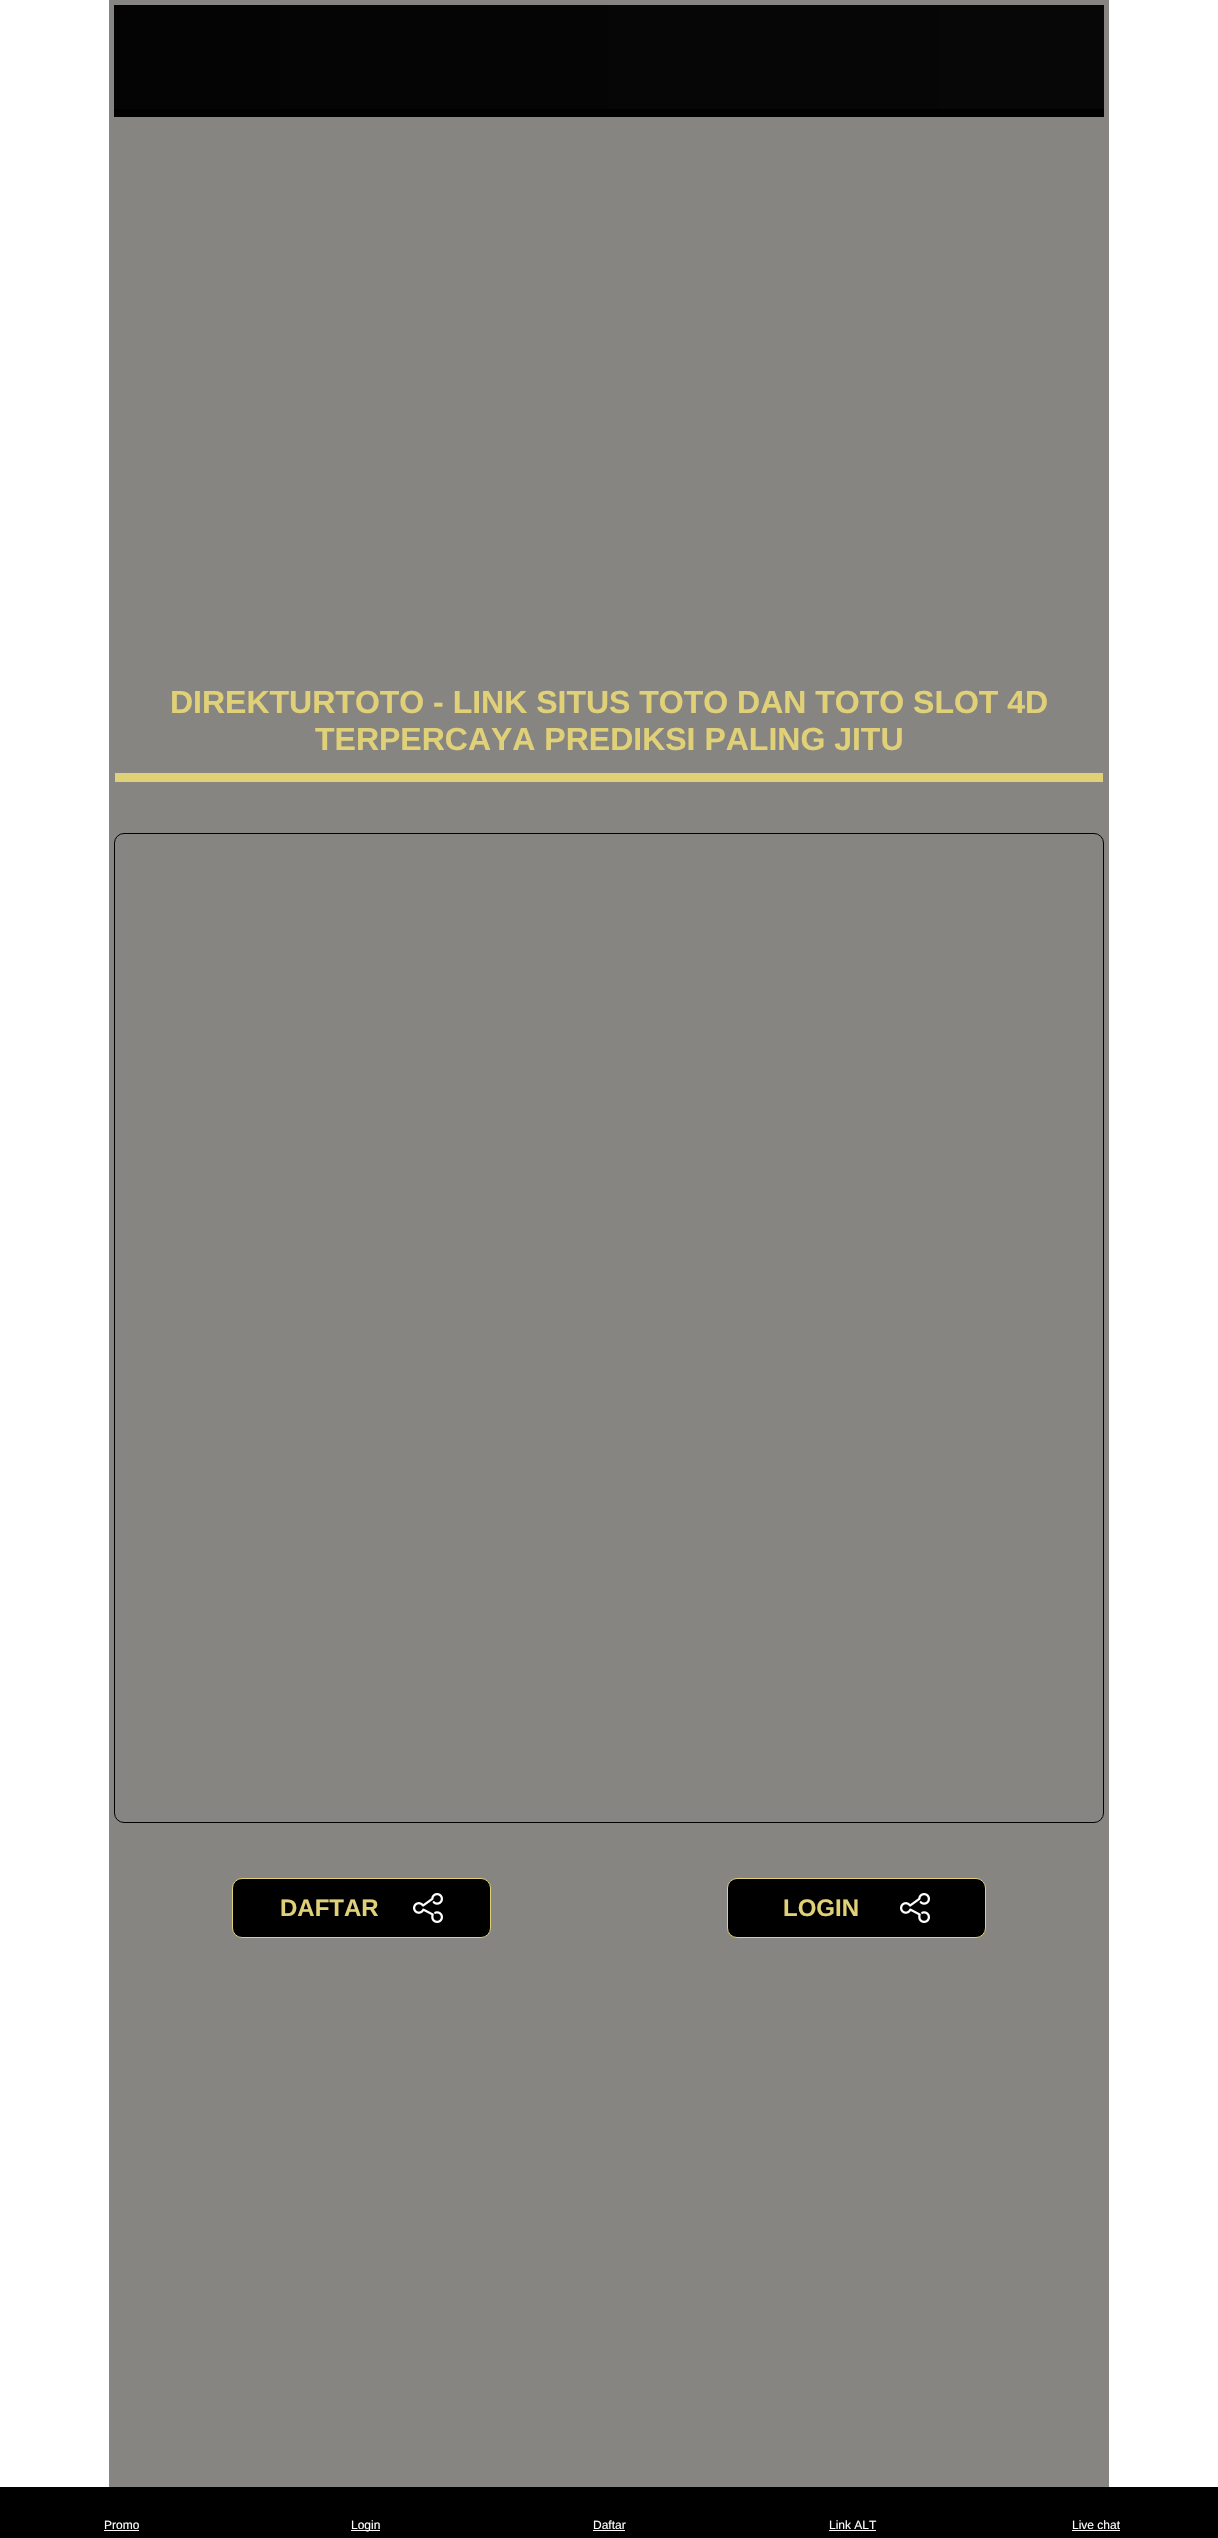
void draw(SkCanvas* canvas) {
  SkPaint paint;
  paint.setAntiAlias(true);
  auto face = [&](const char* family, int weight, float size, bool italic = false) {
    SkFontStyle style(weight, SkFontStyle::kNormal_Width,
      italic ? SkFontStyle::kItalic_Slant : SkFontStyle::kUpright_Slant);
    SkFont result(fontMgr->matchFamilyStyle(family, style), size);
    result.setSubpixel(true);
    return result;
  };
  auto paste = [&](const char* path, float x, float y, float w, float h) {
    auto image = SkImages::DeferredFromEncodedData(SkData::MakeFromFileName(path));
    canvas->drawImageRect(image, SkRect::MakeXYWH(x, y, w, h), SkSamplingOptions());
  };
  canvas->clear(0xffffffff);
  paint.setColor(0xff868582);
  canvas->drawRect(SkRect::MakeXYWH(109, 0, 1000, 2487), paint);
  paint.setColor(0xff000000);
  canvas->drawRect(SkRect::MakeXYWH(114, 109, 990, 8), paint);
  {
    const SkColor colors[] = {0xff070707, 0xff040404};
    const float stops[] = {0, 1};
    const SkPoint ends[] = {{1104, 57}, {114, 57}};
    paint.setShader(SkGradientShader::MakeLinear(ends, colors, stops, 2, SkTileMode::kClamp));
    paint.setAlpha(255);
  }
  canvas->drawRect(SkRect::MakeXYWH(114, 5, 990, 104), paint);
  paint.setShader(nullptr);
  paint.setColor(0xffe0d179);
  canvas->drawRect(SkRect::MakeXYWH(115, 773, 988, 9), paint);
  paint.setStroke(true);
  paint.setStrokeWidth(1);
  paint.setColor(0xff000000);
  canvas->drawRoundRect(SkRect::MakeXYWH(114.5f, 833.5f, 989, 989), 9.5f, 9.5f, paint);
  paint.setStroke(false);
  canvas->drawRoundRect(SkRect::MakeXYWH(232.5f, 1878.5f, 258, 59), 9.5f, 9.5f, paint);
  paint.setStroke(true);
  paint.setColor(0xffe0d179);
  canvas->drawRoundRect(SkRect::MakeXYWH(232.5f, 1878.5f, 258, 59), 9.5f, 9.5f, paint);
  paste("img/1.png", 413, 1893, 30, 30);
  paint.setStroke(false);
  paint.setColor(0xff000000);
  canvas->drawRoundRect(SkRect::MakeXYWH(727.5f, 1878.5f, 258, 59), 9.5f, 9.5f, paint);
  paint.setStroke(true);
  paint.setColor(0xffe0d179);
  canvas->drawRoundRect(SkRect::MakeXYWH(727.5f, 1878.5f, 258, 59), 9.5f, 9.5f, paint);
  paste("img/1.png", 900, 1893, 30, 30);
  paint.setStroke(false);
  {
    const struct { float x, y, w, h; SkColor color; } items[] = {
      {0, 2487, 1218, 51, 0xff000000},
      {104, 2530, 35, 1, 0xffffffff},
      {351, 2530, 29, 1, 0xffffffff},
      {593, 2530, 32, 1, 0xffffffff},
      {829, 2530, 47, 1, 0xffffffff},
      {1072, 2530, 48, 1, 0xffffffff},
    };
    for (auto [x, y, w, h, color] : items) {
      paint.setColor(color);
      canvas->drawRect(SkRect::MakeXYWH(x, y, w, h), paint);
    }
  }
  auto f0 = face("Liberation Sans", 700, 32);
  paint.setColor(0xffe0d179);
  canvas->drawString("DIREKTURTOTO - LINK SITUS TOTO DAN TOTO SLOT 4D", 170, 713, f0, paint);
  canvas->drawString("TERPERCAYA PREDIKSI PALING JITU", 315, 750, f0, paint);
  auto f1 = face("Liberation Sans", 700, 24);
  canvas->drawString("DAFTAR", 280, 1916, f1, paint);
  canvas->drawString("LOGIN", 783, 1916, f1, paint);
  auto f2 = face("Liberation Sans", 400, 12);
  paint.setColor(0xffffffff);
  {
    const struct { const char* s; float x, y; } items[] = {
      {"Promo", 104, 2529},
      {"Login", 351, 2529},
      {"Daftar", 593, 2529},
      {"Link ALT", 829, 2529},
      {"Live chat", 1072, 2529},
    };
    for (auto [s, x, y] : items) {
      canvas->drawString(s, x, y, f2, paint);
    }
  }
}
